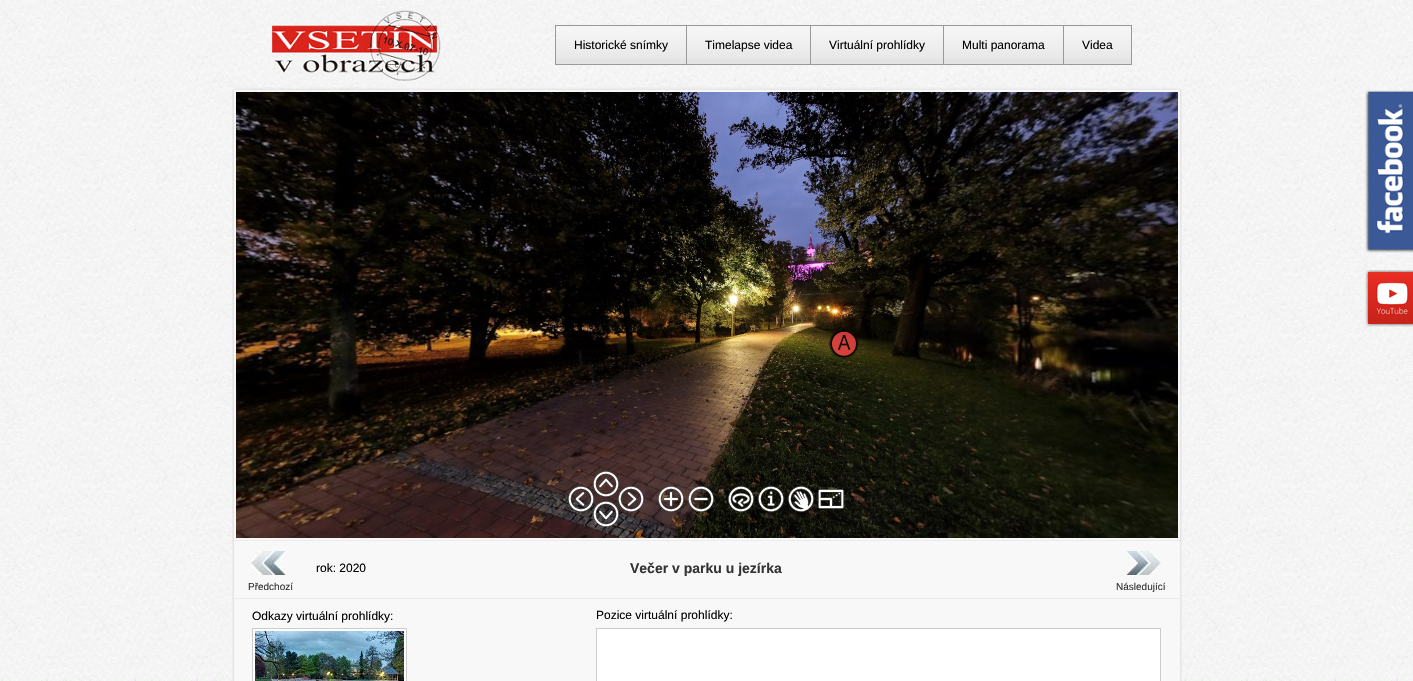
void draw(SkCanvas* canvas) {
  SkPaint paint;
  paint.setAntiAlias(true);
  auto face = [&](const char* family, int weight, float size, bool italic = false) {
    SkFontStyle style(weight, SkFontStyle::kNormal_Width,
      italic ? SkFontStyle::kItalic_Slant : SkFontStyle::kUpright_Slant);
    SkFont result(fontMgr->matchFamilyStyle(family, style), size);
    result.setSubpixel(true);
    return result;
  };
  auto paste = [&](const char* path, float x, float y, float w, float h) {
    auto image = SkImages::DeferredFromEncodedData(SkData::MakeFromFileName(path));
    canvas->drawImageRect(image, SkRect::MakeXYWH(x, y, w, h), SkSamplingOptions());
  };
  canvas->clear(0xffffffff);
  paste("img/1.png", 0, 0, 1413, 681);
  paste("img/2.png", 232, 87, 949, 3);
  paste("img/3.png", 272, 10, 169, 72);
  {
    const struct { float x, y, w, h; SkColor color; } items[] = {
      {555, 25, 1, 40, 0xff999999},
      {556, 25, 576, 1, 0xff999999},
      {686, 25, 1, 40, 0xff999999},
      {556, 64, 131, 1, 0xff999999},
      {556, 59, 130, 5, 0xffe3e3e3},
    };
    for (auto [x, y, w, h, color] : items) {
      paint.setColor(color);
      canvas->drawRect(SkRect::MakeXYWH(x, y, w, h), paint);
    }
  }
  paste("img/4.png", 556, 26, 130, 33);
  {
    const struct { float x, y, w, h; SkColor color; } items[] = {
      {810, 25, 1, 40, 0xff999999},
      {687, 64, 124, 1, 0xff999999},
      {687, 59, 123, 5, 0xffe3e3e3},
    };
    for (auto [x, y, w, h, color] : items) {
      paint.setColor(color);
      canvas->drawRect(SkRect::MakeXYWH(x, y, w, h), paint);
    }
  }
  paste("img/5.png", 687, 26, 123, 33);
  {
    const struct { float x, y, w, h; SkColor color; } items[] = {
      {943, 25, 1, 40, 0xff999999},
      {811, 64, 133, 1, 0xff999999},
      {811, 59, 132, 5, 0xffe3e3e3},
    };
    for (auto [x, y, w, h, color] : items) {
      paint.setColor(color);
      canvas->drawRect(SkRect::MakeXYWH(x, y, w, h), paint);
    }
  }
  paste("img/6.png", 811, 26, 132, 33);
  {
    const struct { float x, y, w, h; SkColor color; } items[] = {
      {1063, 25, 1, 40, 0xff999999},
      {944, 64, 120, 1, 0xff999999},
      {944, 59, 119, 5, 0xffe3e3e3},
    };
    for (auto [x, y, w, h, color] : items) {
      paint.setColor(color);
      canvas->drawRect(SkRect::MakeXYWH(x, y, w, h), paint);
    }
  }
  paste("img/7.png", 944, 26, 119, 33);
  {
    const struct { float x, y, w, h; SkColor color; } items[] = {
      {1131, 25, 1, 40, 0xff999999},
      {1064, 64, 68, 1, 0xff999999},
      {1064, 59, 67, 5, 0xffe3e3e3},
    };
    for (auto [x, y, w, h, color] : items) {
      paint.setColor(color);
      canvas->drawRect(SkRect::MakeXYWH(x, y, w, h), paint);
    }
  }
  paste("img/8.png", 1064, 26, 67, 33);
  paste("img/9.png", 232, 90, 950, 591);
  paste("img/10.png", 234, 90, 946, 591);
  paste("img/11.png", 236, 92, 942, 446);
  paste("img/12.png", 829, 329, 30, 30);
  paste("img/14.png", 593, 471, 26, 26);
  paste("img/22.png", 593, 501, 26, 26);
  paste("img/13.png", 568, 486, 26, 26);
  paste("img/15.png", 618, 486, 26, 26);
  paste("img/16.png", 658, 486, 26, 26);
  paste("img/17.png", 688, 486, 26, 26);
  paste("img/18.png", 727, 485, 28, 27);
  paste("img/19.png", 757, 485, 28, 28);
  paste("img/20.png", 788, 486, 26, 27);
  paste("img/21.png", 817, 489, 28, 20);
  paste("img/23.png", 251, 551, 35, 24);
  paste("img/24.png", 1126, 551, 35, 24);
  paint.setColor(0xffebebeb);
  canvas->drawRect(SkRect::MakeXYWH(232, 598, 950, 1), paint);
  paint.setColor(0xffffffff);
  canvas->drawRect(SkRect::MakeXYWH(252.5f, 628.5f, 154, 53), paint);
  paint.setStroke(true);
  paint.setStrokeWidth(1);
  paint.setColor(0xffcccccc);
  canvas->drawRect(SkRect::MakeXYWH(252.5f, 628.5f, 154, 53), paint);
  paste("img/25.png", 255, 631, 149, 50);
  paint.setStroke(false);
  paint.setColor(0xffffffff);
  canvas->drawRect(SkRect::MakeXYWH(596.5f, 628.5f, 564, 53), paint);
  paint.setStroke(true);
  paint.setColor(0xffcccccc);
  canvas->drawRect(SkRect::MakeXYWH(596.5f, 628.5f, 564, 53), paint);
  paste("img/26.png", 1365, 90, 48, 163);
  paste("img/27.png", 1365, 270, 48, 57);
  auto f0 = face("Liberation Sans", 400, 12);
  paint.setStroke(false);
  paint.setColor(0xff000000);
  {
    const struct { const char* s; float x, y; } items[] = {
      {"Historické snímky", 574, 49},
      {"Timelapse videa", 705, 49},
      {"Virtuální prohlídky", 829, 49},
      {"Multi panorama", 962, 49},
      {"Videa", 1082, 49},
      {"rok: 2020", 316, 572},
    };
    for (auto [s, x, y] : items) {
      canvas->drawString(s, x, y, f0, paint);
    }
  }
  auto f1 = face("Liberation Sans", 700, 14);
  paint.setColor(0xff333333);
  canvas->drawString("Večer v parku u jezírka", 630, 573, f1, paint);
  auto f2 = face("Liberation Sans", 400, 10);
  canvas->drawString("Předchozí", 248, 590, f2, paint);
  canvas->drawString("Následující", 1116, 590, f2, paint);
  paint.setColor(0xff000000);
  canvas->drawString("Odkazy virtuální prohlídky:", 252, 620, f0, paint);
  canvas->drawString("Pozice virtuální prohlídky:", 596, 619, f0, paint);
}
